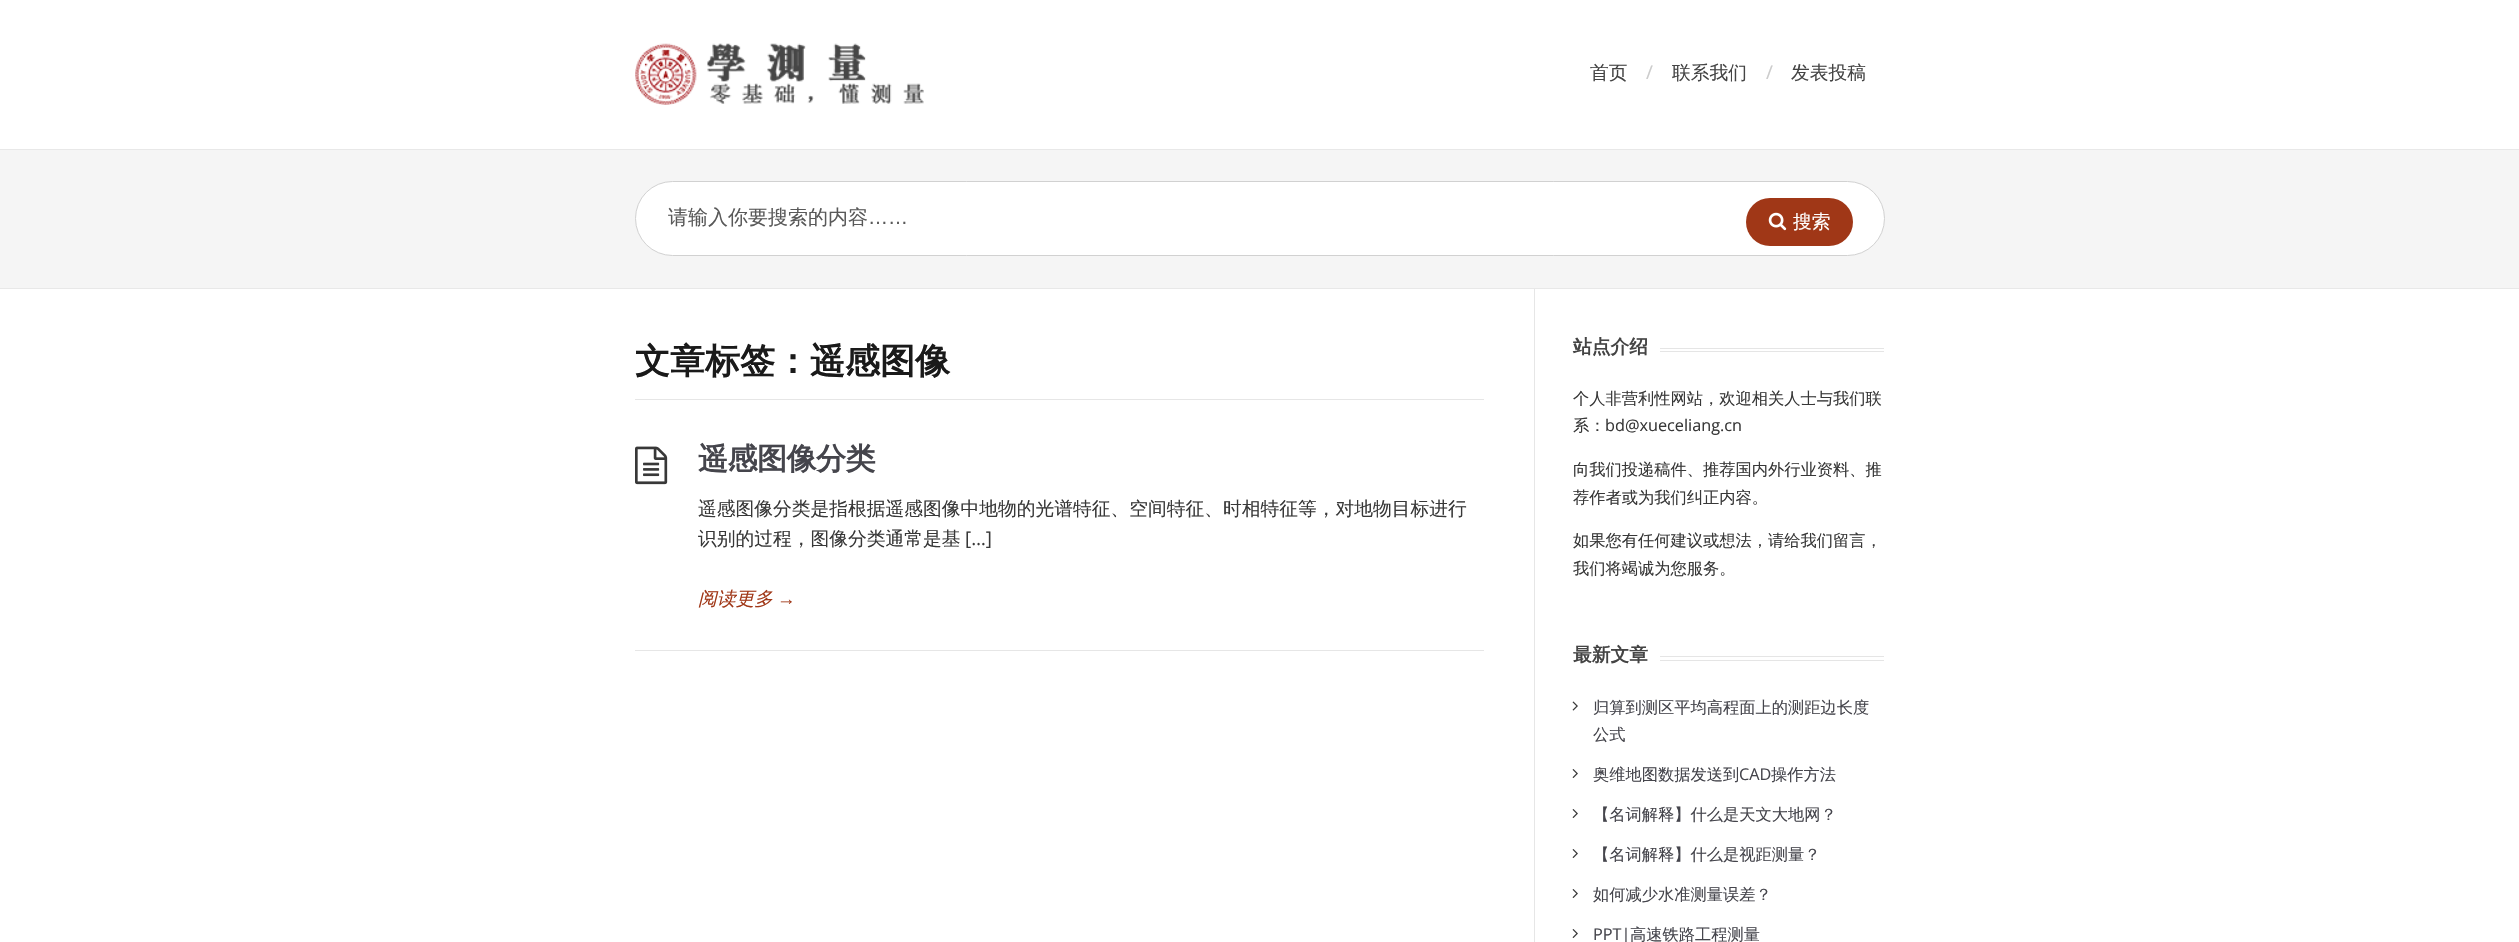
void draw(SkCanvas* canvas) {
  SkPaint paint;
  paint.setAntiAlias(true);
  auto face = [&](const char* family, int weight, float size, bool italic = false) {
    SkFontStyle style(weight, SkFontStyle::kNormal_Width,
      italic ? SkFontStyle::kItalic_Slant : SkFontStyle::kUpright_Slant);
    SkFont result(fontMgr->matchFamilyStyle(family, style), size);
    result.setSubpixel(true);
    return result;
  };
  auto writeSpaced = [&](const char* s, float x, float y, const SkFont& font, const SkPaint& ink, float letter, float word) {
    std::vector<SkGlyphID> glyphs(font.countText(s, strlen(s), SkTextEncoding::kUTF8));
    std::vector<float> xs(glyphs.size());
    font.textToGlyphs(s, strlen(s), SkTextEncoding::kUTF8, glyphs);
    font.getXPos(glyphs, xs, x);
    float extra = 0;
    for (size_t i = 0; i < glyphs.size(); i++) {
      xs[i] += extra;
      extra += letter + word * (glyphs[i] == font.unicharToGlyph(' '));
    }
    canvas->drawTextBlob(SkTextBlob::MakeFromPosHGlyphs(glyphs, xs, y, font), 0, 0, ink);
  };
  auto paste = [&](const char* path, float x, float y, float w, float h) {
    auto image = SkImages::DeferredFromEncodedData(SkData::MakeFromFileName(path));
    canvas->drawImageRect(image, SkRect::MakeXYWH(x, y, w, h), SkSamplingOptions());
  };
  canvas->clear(0xffffffff);
  paste("img/1.png", 635, 43, 289, 62);
  {
    const struct { float x, y, w, h; SkColor color; } items[] = {
      {0, 150, 2519, 138, 0xfff5f5f5},
      {0, 149, 2519, 1, 0xffe8e8e8},
      {0, 288, 2519, 1, 0xffe8e8e8},
    };
    for (auto [x, y, w, h, color] : items) {
      paint.setColor(color);
      canvas->drawRect(SkRect::MakeXYWH(x, y, w, h), paint);
    }
  }
  paint.setColor(0xffffffff);
  canvas->drawRoundRect(SkRect::MakeXYWH(635.5f, 181.5f, 1249, 74), 37, 37, paint);
  paint.setStroke(true);
  paint.setStrokeWidth(1);
  paint.setColor(0xffd1d1d1);
  canvas->drawRoundRect(SkRect::MakeXYWH(635.5f, 181.5f, 1249, 74), 37, 37, paint);
  paint.setStroke(false);
  paint.setColor(0xffa03717);
  canvas->drawRoundRect(SkRect::MakeXYWH(1746, 198, 107, 48), 24, 24, paint);
  paste("img/2.png", 1768, 212, 19, 19);
  paint.setColor(0xffe6e6e6);
  canvas->drawRect(SkRect::MakeXYWH(635, 399, 849, 1), paint);
  canvas->drawRect(SkRect::MakeXYWH(635, 650, 849, 1), paint);
  paste("img/3.png", 635, 446, 33, 39);
  {
    const struct { float x, y, w, h; SkColor color; } items[] = {
      {1534, 289, 1, 653, 0xffe6e6e6},
      {1660, 348, 224, 1, 0xffe5e5e5},
      {1660, 351, 224, 1, 0xffe5e5e5},
      {1660, 656, 224, 1, 0xffe5e5e5},
      {1660, 660, 224, 1, 0xffe5e5e5},
    };
    for (auto [x, y, w, h, color] : items) {
      paint.setColor(color);
      canvas->drawRect(SkRect::MakeXYWH(x, y, w, h), paint);
    }
  }
  paste("img/4.png", 1572, 701, 6, 10);
  paste("img/5.png", 1572, 769, 6, 9);
  paste("img/5.png", 1572, 809, 6, 9);
  paste("img/5.png", 1572, 849, 6, 9);
  paste("img/5.png", 1572, 889, 6, 9);
  paste("img/5.png", 1572, 929, 6, 9);
  auto f0 = face("WenQuanYi Zen Hei", 500, 18.75f);
  paint.setColor(0xff444444);
  canvas->drawString("首页", 1590, 79, f0, paint);
  auto f1 = face("Open Sans", 400, 18.75f);
  paint.setColor(0xffcccccc);
  canvas->drawString("/", 1646, 79, f1, paint);
  paint.setColor(0xff444444);
  canvas->drawString("联系我们", 1672, 79, f0, paint);
  paint.setColor(0xffcccccc);
  canvas->drawString("/", 1766, 79, f1, paint);
  paint.setColor(0xff444444);
  canvas->drawString("发表投稿", 1791, 79, f0, paint);
  auto f2 = face("WenQuanYi Zen Hei", 500, 20);
  paint.setColor(0xff595959);
  canvas->drawString("请输入你要搜索的内容", 668, 224, f2, paint);
  auto f3 = face("Liberation Sans", 400, 20);
  canvas->drawString("……", 868, 224, f3, paint);
  paint.setColor(0xffffffff);
  canvas->drawString("搜索", 1793, 228, f0, paint);
  auto f4 = face("WenQuanYi Zen Hei", 700, 35);
  paint.setColor(0xff1a1a1a);
  canvas->drawString("文章标签：遥感图像", 635, 373, f4, paint);
  auto f5 = face("WenQuanYi Zen Hei", 700, 30);
  paint.setColor(0xff45454c);
  writeSpaced("遥感图像分类", 698, 469, f5, paint, -0.5f, 0);
  paint.setColor(0xff383838);
  canvas->drawString("遥感图像分类是指根据遥感图像中地物的光谱特征、空间特征、时相特征等，对地物目标进行", 698, 515, f0, paint);
  canvas->drawString("识别的过程，图像分类通常是基", 698, 545, f0, paint);
  canvas->drawString("[…]", 965, 545, f1, paint);
  auto f6 = face("WenQuanYi Zen Hei", 500, 18.75f, true);
  paint.setColor(0xffa03717);
  canvas->drawString("阅读更多", 698, 605, f6, paint);
  auto f7 = face("Liberation Sans", 400, 18.75f, true);
  canvas->drawString("→", 777, 605, f7, paint);
  auto f8 = face("WenQuanYi Zen Hei", 700, 18.75f);
  paint.setColor(0xff444444);
  canvas->drawString("站点介绍", 1573, 353, f8, paint);
  auto f9 = face("WenQuanYi Zen Hei", 500, 16.25f);
  paint.setColor(0xff383838);
  canvas->drawString("个人非营利性网站，欢迎相关人士与我们联", 1573, 404, f9, paint);
  canvas->drawString("系：", 1573, 431, f9, paint);
  auto f10 = face("Open Sans", 400, 16.25f);
  canvas->drawString("bd@xueceliang.cn", 1605, 431, f10, paint);
  {
    const struct { const char* s; float x, y; } items[] = {
      {"向我们投递稿件、推荐国内外行业资料、推", 1573, 475},
      {"荐作者或为我们纠正内容。", 1573, 503},
      {"如果您有任何建议或想法，请给我们留言，", 1573, 546},
      {"我们将竭诚为您服务。", 1573, 574},
    };
    for (auto [s, x, y] : items) {
      canvas->drawString(s, x, y, f9, paint);
    }
  }
  paint.setColor(0xff444444);
  canvas->drawString("最新文章", 1573, 661, f8, paint);
  paint.setColor(0xff45454c);
  {
    const struct { const char* s; float x, y; } items[] = {
      {"归算到测区平均高程面上的测距边长度", 1593, 713},
      {"公式", 1593, 740},
      {"奥维地图数据发送到", 1593, 780},
    };
    for (auto [s, x, y] : items) {
      canvas->drawString(s, x, y, f9, paint);
    }
  }
  canvas->drawString("CAD", 1739, 780, f10, paint);
  {
    const struct { const char* s; float x, y; } items[] = {
      {"操作方法", 1771, 780},
      {"【名词解释】什么是天文大地网？", 1593, 820},
      {"【名词解释】什么是视距测量？", 1593, 860},
      {"如何减少水准测量误差？", 1593, 900},
    };
    for (auto [s, x, y] : items) {
      canvas->drawString(s, x, y, f9, paint);
    }
  }
  canvas->drawString("PPT|", 1593, 940, f10, paint);
  canvas->drawString("高速铁路工程测量", 1630, 940, f9, paint);
}
